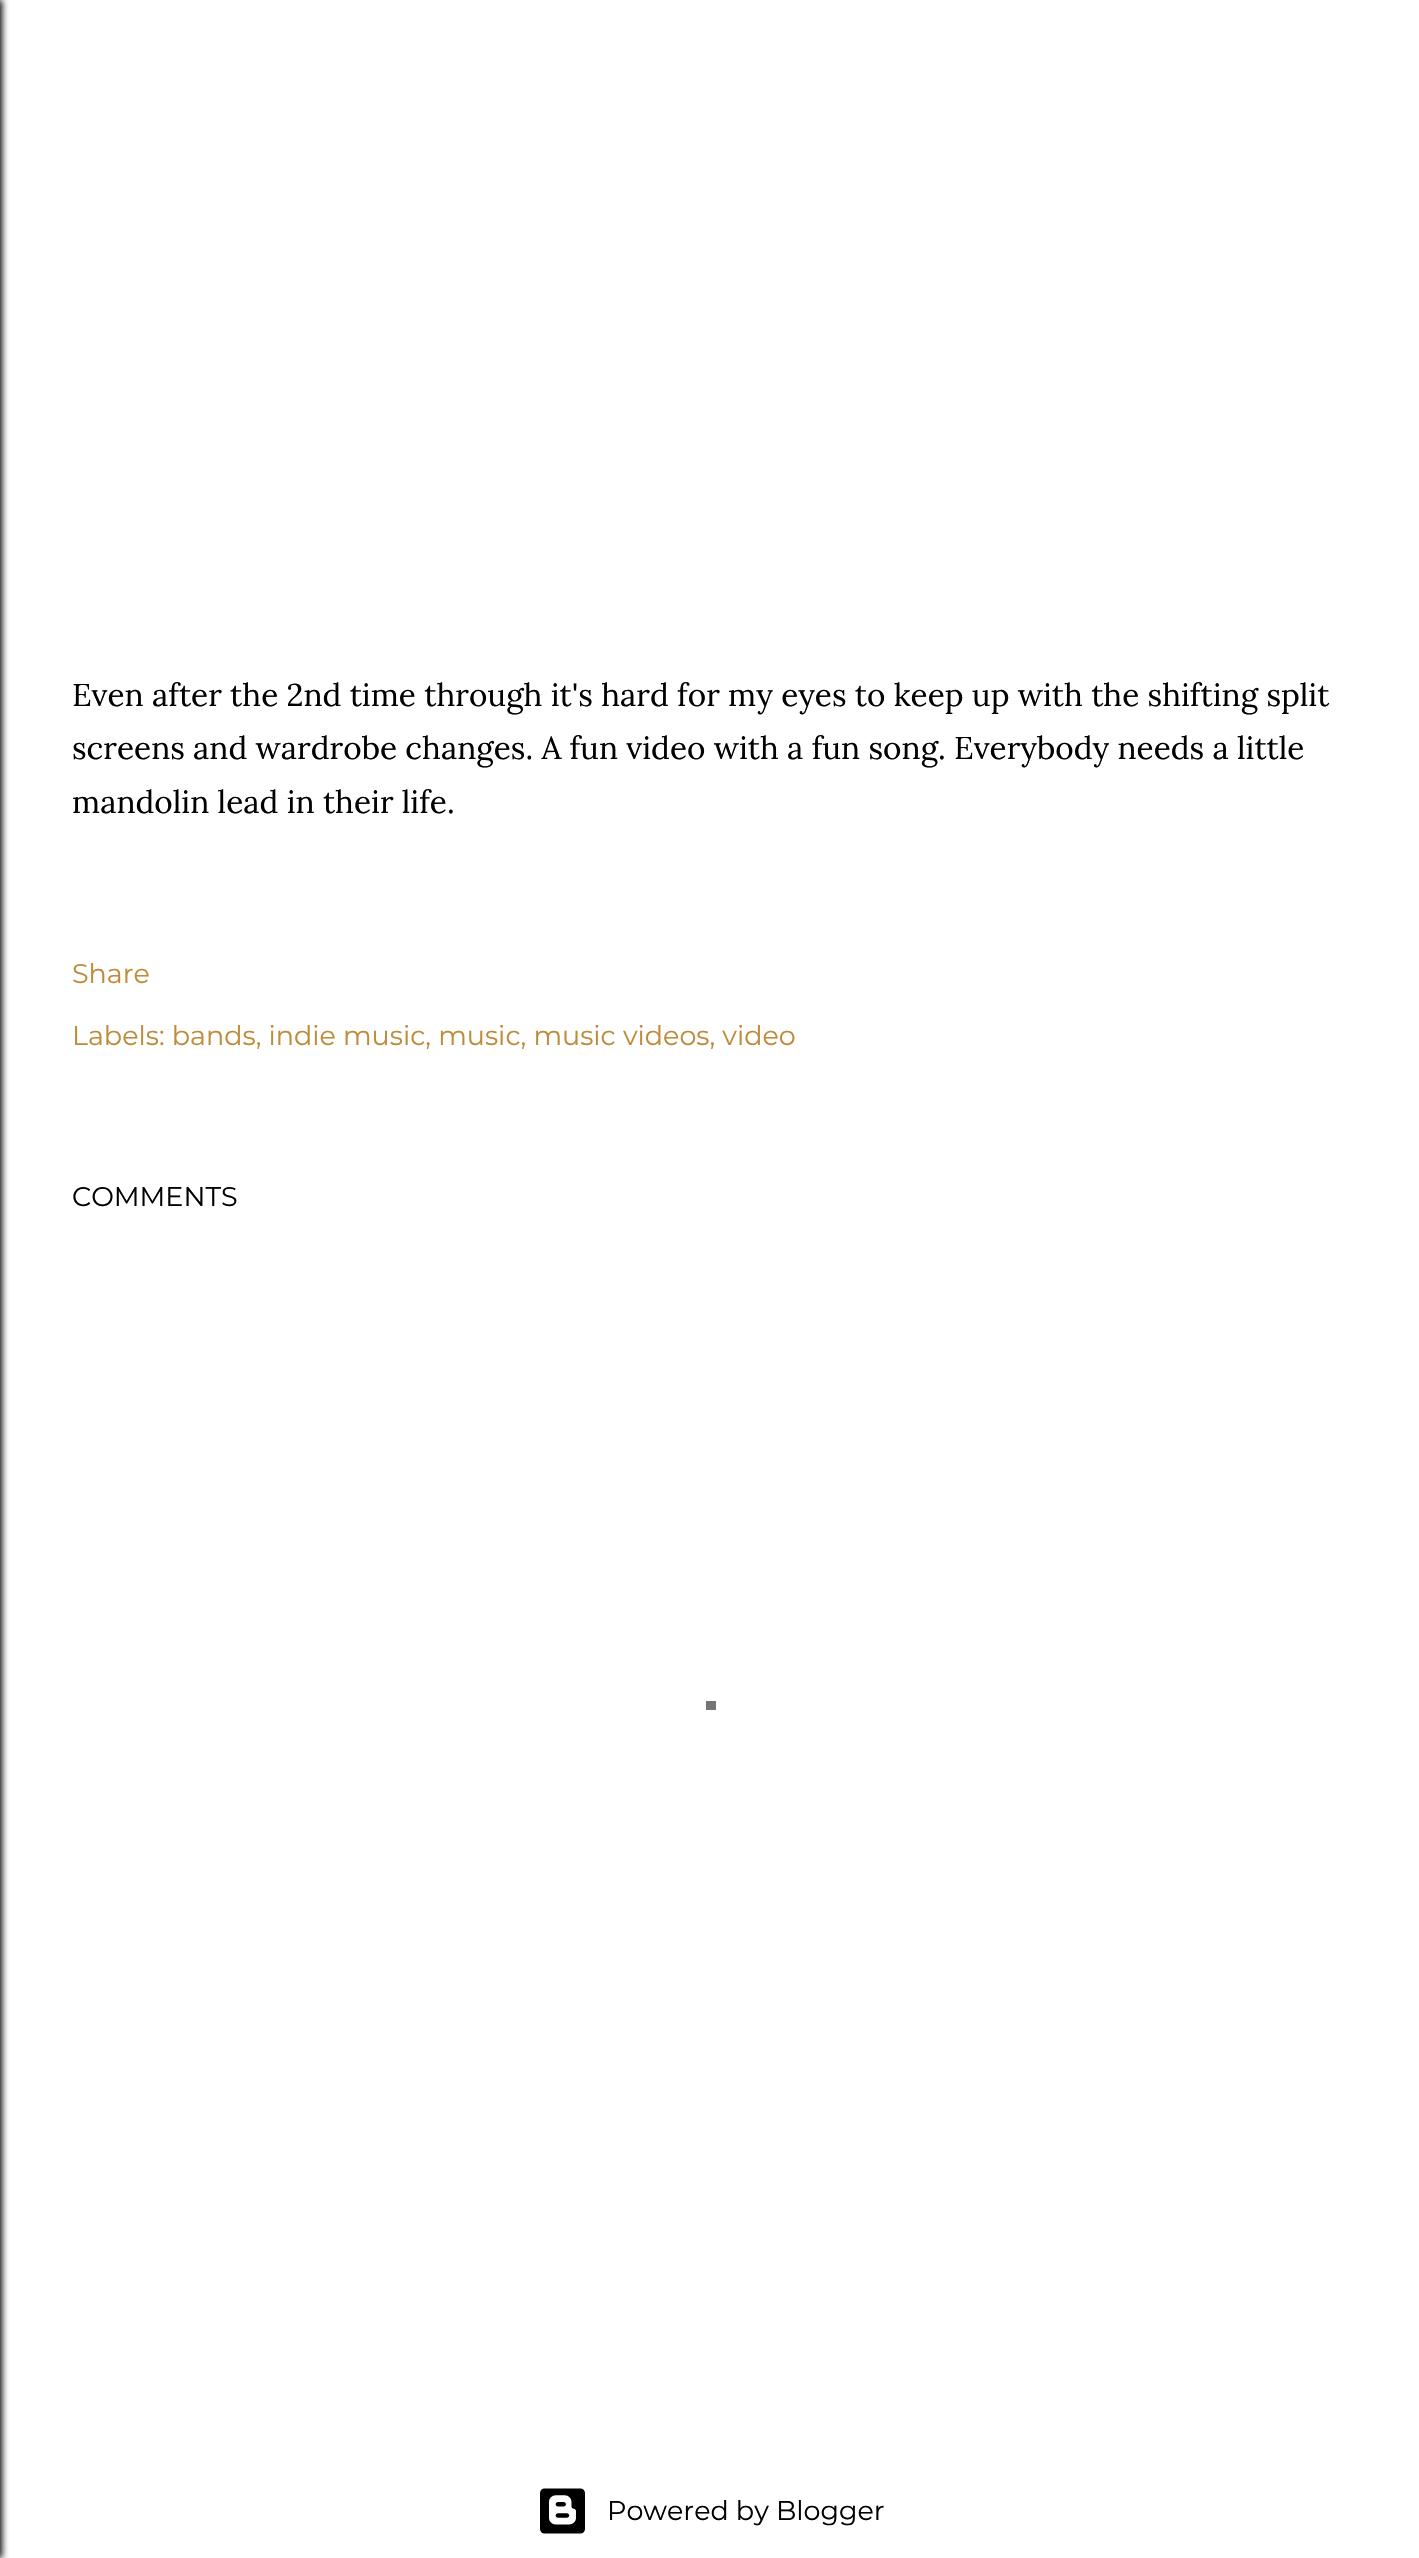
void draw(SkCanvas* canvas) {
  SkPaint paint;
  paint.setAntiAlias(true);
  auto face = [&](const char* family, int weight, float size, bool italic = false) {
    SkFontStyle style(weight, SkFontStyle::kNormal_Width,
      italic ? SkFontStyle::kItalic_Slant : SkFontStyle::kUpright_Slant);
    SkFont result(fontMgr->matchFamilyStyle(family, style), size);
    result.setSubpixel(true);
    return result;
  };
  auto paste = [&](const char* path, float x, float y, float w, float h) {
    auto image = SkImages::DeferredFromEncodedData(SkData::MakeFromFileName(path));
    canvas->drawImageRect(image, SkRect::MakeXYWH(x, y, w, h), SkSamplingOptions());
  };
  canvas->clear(0xffffffff);
  paint.setColor(0xff000000);
  paint.setMaskFilter(SkMaskFilter::MakeBlur(kNormal_SkBlurStyle, 3.5f));
  canvas->drawRect(SkRect::MakeXYWH(-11, 0, 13, 2558), paint);
  paint.setMaskFilter(nullptr);
  paste("img/1.png", 540, 2488, 45, 46);
  paint.setColor(0xff757575);
  canvas->drawRect(SkRect::MakeXYWH(706, 1701, 10, 9), paint);
  auto f0 = face("Lora", 400, 31.5f);
  paint.setColor(0xff000000);
  {
    const struct { const char* s; float x, y; } items[] = {
      {"Even after the 2nd time through it's hard for my eyes to keep up with the shifting split", 72, 706},
      {"screens and wardrobe changes. A fun video with a fun song. Everybody needs a little", 72, 759},
      {"mandolin lead in their life.", 72, 813},
    };
    for (auto [s, x, y] : items) {
      canvas->drawString(s, x, y, f0, paint);
    }
  }
  auto f1 = face("Montserrat", 400, 27);
  paint.setColor(0xffbf8b38);
  canvas->drawString("Share", 72, 983, f1, paint);
  canvas->drawString("Labels: bands, indie music, music, music videos, video", 72, 1045, f1, paint);
  paint.setColor(0xff000000);
  canvas->drawString("COMMENTS", 72, 1206, f1, paint);
  canvas->drawString("Powered by Blogger", 607, 2520, f1, paint);
}
